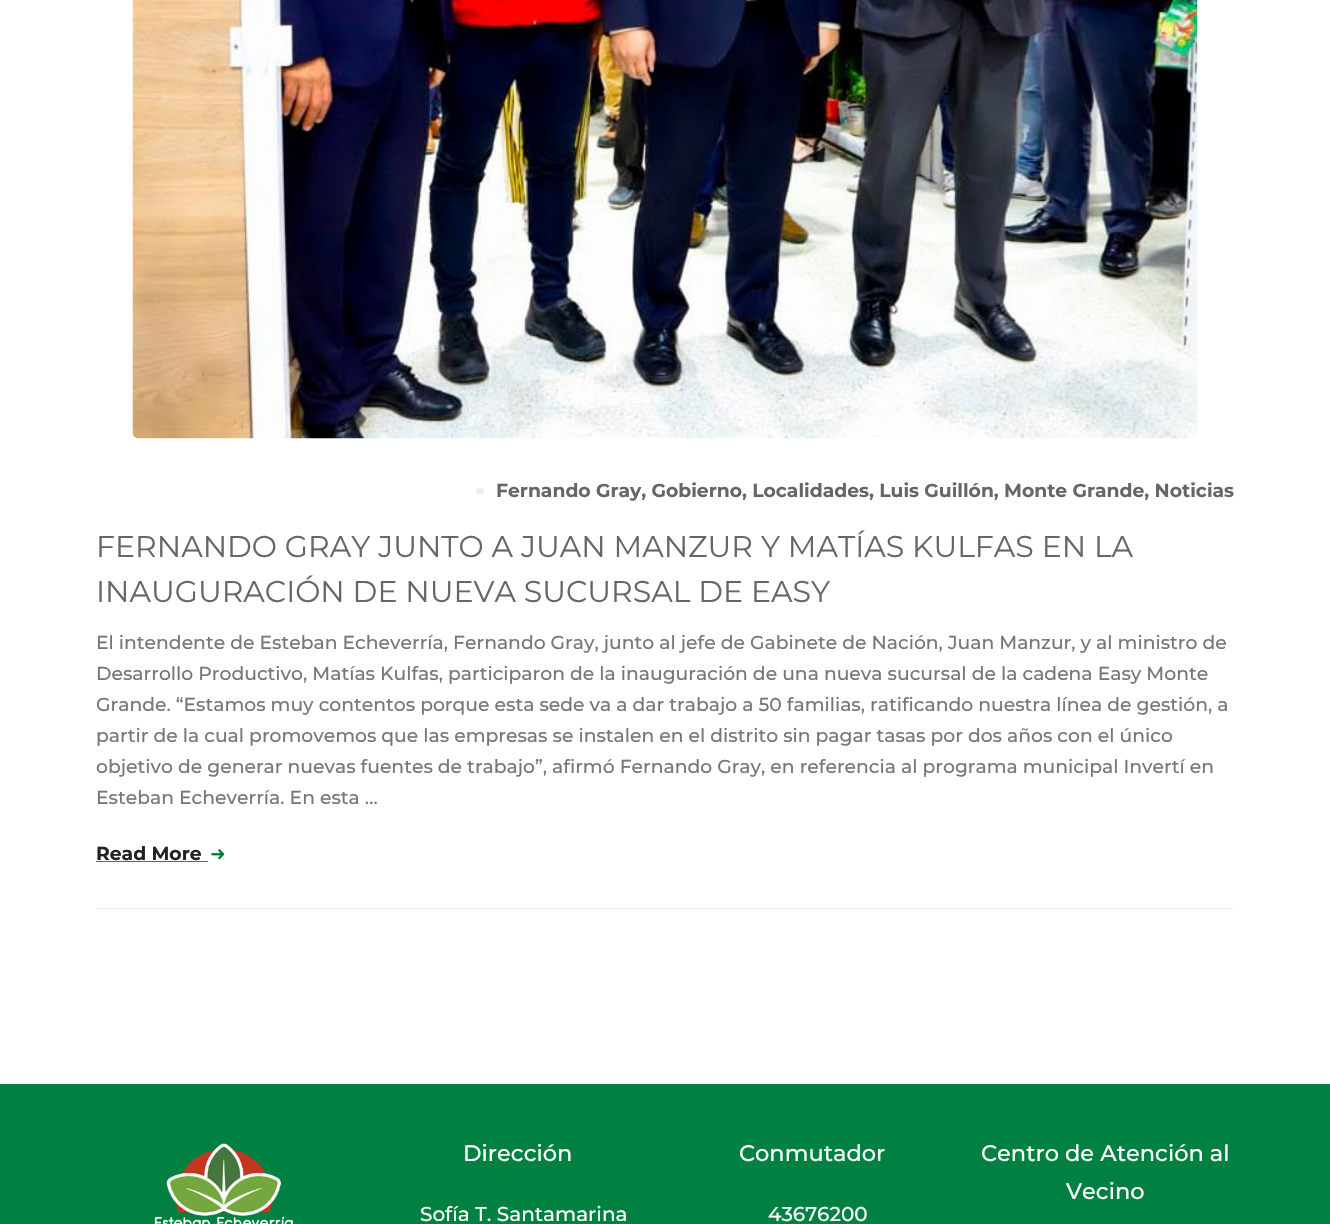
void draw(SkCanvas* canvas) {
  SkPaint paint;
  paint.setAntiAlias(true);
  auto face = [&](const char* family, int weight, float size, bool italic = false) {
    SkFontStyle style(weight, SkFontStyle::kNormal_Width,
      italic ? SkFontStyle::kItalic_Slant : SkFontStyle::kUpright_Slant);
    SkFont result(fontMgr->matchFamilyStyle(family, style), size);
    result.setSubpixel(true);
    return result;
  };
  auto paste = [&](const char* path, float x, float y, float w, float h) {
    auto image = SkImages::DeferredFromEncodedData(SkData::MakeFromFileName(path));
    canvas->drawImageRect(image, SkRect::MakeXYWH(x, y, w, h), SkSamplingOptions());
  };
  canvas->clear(0xffffffff);
  paint.setColor(0xffeeeeee);
  canvas->drawRect(SkRect::MakeXYWH(96, 908, 1138, 1), paint);
  paste("img/1.png", 132, 0, 1066, 439);
  canvas->drawRoundRect(SkRect::MakeXYWH(476, 488, 8, 7), 3.5f, 3.5f, paint);
  paint.setColor(0xffe33419);
  canvas->drawRect(SkRect::MakeXYWH(96, 861, 112, 1), paint);
  paste("img/2.png", 211, 849, 14, 11);
  paint.setColor(0xff008142);
  canvas->drawRect(SkRect::MakeXYWH(0, 1084, 1330, 140), paint);
  paste("img/3.png", 154, 1143, 139, 81);
  auto f0 = face("Montserrat", 700, 18.75f);
  paint.setColor(0xff666666);
  canvas->drawString("Fernando Gray, Gobierno, Localidades, Luis Guillón, Monte Grande, Noticias", 496, 497, f0, paint);
  auto f1 = face("Montserrat", 400, 30);
  canvas->drawString("FERNANDO GRAY JUNTO A JUAN MANZUR Y MATÍAS KULFAS EN LA", 96, 557, f1, paint);
  canvas->drawString("INAUGURACIÓN DE NUEVA SUCURSAL DE EASY", 96, 602, f1, paint);
  auto f2 = face("Montserrat", 500, 18.75f);
  paint.setColor(0xff777777);
  {
    const struct { const char* s; float x, y; } items[] = {
      {"El intendente de Esteban Echeverría, Fernando Gray, junto al jefe de Gabinete de Nación, Juan Manzur, y al ministro de", 96, 649},
      {"Desarrollo Productivo, Matías Kulfas, participaron de la inauguración de una nueva sucursal de la cadena Easy Monte", 96, 680},
      {"Grande. “Estamos muy contentos porque esta sede va a dar trabajo a 50 familias, ratificando nuestra línea de gestión, a", 96, 711},
      {"partir de la cual promovemos que las empresas se instalen en el distrito sin pagar tasas por dos años con el único", 96, 742},
      {"objetivo de generar nuevas fuentes de trabajo”, afirmó Fernando Gray, en referencia al programa municipal Invertí en", 96, 773},
      {"Esteban Echeverría. En esta …", 96, 804},
    };
    for (auto [s, x, y] : items) {
      canvas->drawString(s, x, y, f2, paint);
    }
  }
  paint.setColor(0xff222222);
  canvas->drawString("Read More", 96, 860, f0, paint);
  auto f3 = face("Montserrat", 500, 22.5f);
  paint.setColor(0xffffffff);
  canvas->drawString("Dirección", 463, 1161, f3, paint);
  auto f4 = face("Montserrat", 500, 20);
  canvas->drawString("Sofía T. Santamarina", 420, 1221, f4, paint);
  canvas->drawString("Conmutador", 739, 1161, f3, paint);
  canvas->drawString("43676200", 768, 1221, f4, paint);
  canvas->drawString("Centro de Atención al", 981, 1161, f3, paint);
  canvas->drawString("Vecino", 1066, 1199, f3, paint);
}
